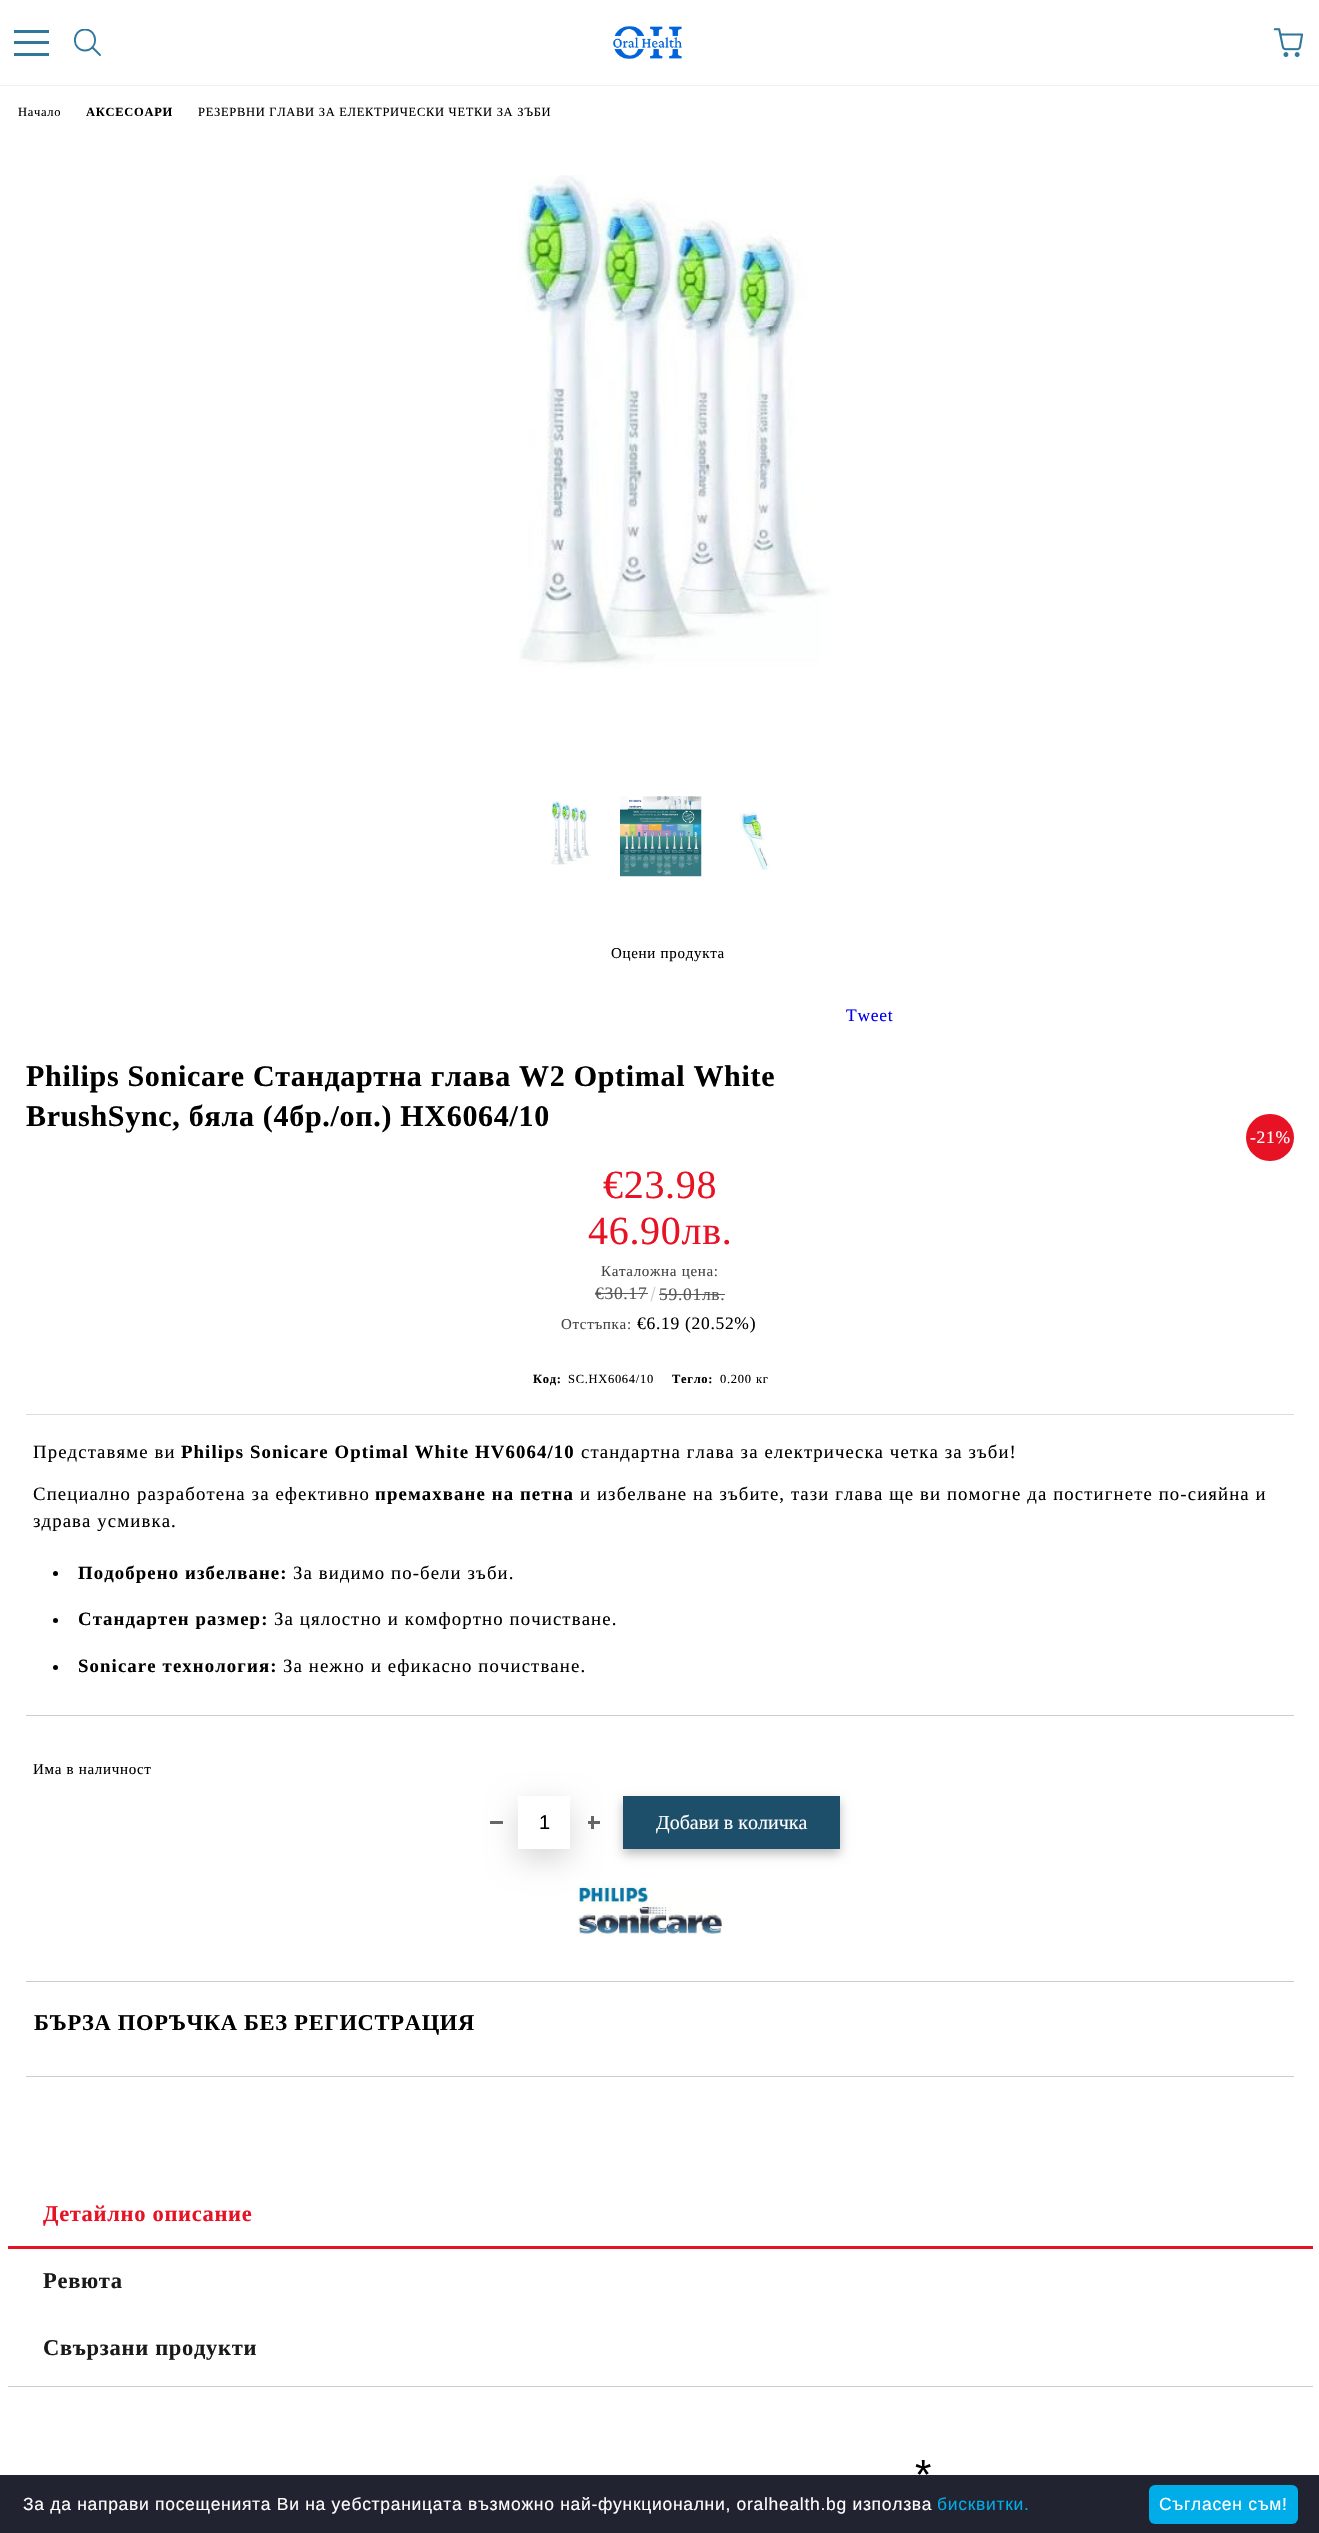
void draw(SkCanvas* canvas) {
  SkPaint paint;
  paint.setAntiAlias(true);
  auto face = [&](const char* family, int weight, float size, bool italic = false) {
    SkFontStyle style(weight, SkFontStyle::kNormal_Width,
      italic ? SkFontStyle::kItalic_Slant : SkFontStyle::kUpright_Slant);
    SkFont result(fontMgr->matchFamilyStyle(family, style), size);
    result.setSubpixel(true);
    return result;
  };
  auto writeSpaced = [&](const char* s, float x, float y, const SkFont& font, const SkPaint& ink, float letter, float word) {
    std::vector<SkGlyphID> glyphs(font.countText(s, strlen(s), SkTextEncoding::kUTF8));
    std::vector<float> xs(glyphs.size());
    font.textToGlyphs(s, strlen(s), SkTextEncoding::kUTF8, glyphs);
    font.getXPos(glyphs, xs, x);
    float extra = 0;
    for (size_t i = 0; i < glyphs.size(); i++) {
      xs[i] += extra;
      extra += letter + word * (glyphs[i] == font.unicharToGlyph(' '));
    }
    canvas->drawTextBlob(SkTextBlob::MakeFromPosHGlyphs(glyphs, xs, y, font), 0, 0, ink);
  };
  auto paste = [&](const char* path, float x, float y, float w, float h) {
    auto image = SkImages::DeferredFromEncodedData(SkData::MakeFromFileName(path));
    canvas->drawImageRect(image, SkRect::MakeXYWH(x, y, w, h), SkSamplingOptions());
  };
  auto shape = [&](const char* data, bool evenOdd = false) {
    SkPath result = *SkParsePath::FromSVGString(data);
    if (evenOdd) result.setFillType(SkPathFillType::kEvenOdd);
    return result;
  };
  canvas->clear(0xffffffff);
  {
    const struct { float x, y, w, h; SkColor color; } items[] = {
      {0, 85, 1319, 1, 0xfff1f1f1},
      {14, 30, 35, 3, 0xff31779c},
      {14, 41, 35, 3, 0xff31779c},
      {14, 53, 35, 3, 0xff31779c},
    };
    for (auto [x, y, w, h, color] : items) {
      paint.setColor(color);
      canvas->drawRect(SkRect::MakeXYWH(x, y, w, h), paint);
    }
  }
  canvas->save();
  canvas->clipRect(SkRect::MakeXYWH(74, 29, 27, 27));
  paint.setStroke(true);
  paint.setStrokeWidth(1.9f);
  canvas->drawPath(shape("M85 29.5C71.5 29.5 71.5 50.5 85 50.5C98.5 50.5 98.5 29.5 85 29.5Z"), paint);
  canvas->restore();
  paint.setStrokeCap(SkPaint::kRound_Cap);
  canvas->drawPath(shape("M92.5 47.5L100 55"), paint);
  paste("img/1.png", 613, 26, 69, 33);
  paste("img/2.png", 1273, 28, 31, 29);
  paste("img/3.png", 518, 175, 313, 494);
  paste("img/4.png", 551, 801, 40, 64);
  paste("img/5.png", 620, 796, 82, 81);
  paste("img/6.png", 739, 812, 31, 59);
  paint.setStroke(false);
  paint.setColor(0xffe81225);
  canvas->drawRoundRect(SkRect::MakeXYWH(1246, 1114, 48, 47), 23.5f, 23.5f, paint);
  paint.setColor(0xff595959);
  canvas->drawRect(SkRect::MakeXYWH(595, 1293, 53, 1), paint);
  paint.setColor(0xffcbcbcb);
  canvas->drawPath(shape("M654.5 1286.5L655.5 1287L651.5 1301.5L650.5 1301Z"), paint);
  paint.setColor(0xff595959);
  canvas->drawRect(SkRect::MakeXYWH(659, 1294, 66, 1), paint);
  paint.setColor(0xffdddddd);
  canvas->drawRect(SkRect::MakeXYWH(26, 1414, 1268, 1), paint);
  paint.setColor(0xff000000);
  canvas->drawCircle(55.5f, 1573.5f, 2.5f, paint);
  canvas->drawCircle(55.5f, 1620.5f, 2.5f, paint);
  canvas->drawCircle(55.5f, 1667.5f, 2.5f, paint);
  paint.setColor(0xffcccccc);
  canvas->drawRect(SkRect::MakeXYWH(26, 1715, 1268, 1), paint);
  paint.setColor(0x29000000);
  paint.setMaskFilter(SkMaskFilter::MakeBlur(kNormal_SkBlurStyle, 15));
  canvas->drawRect(SkRect::MakeXYWH(518, 1806, 52, 53), paint);
  paint.setMaskFilter(nullptr);
  {
    const struct { float x, y, w, h; SkColor color; } items[] = {
      {490, 1821, 13, 3, 0xff666666},
      {518, 1796, 52, 53, 0xffffffff},
      {588, 1821, 12, 3, 0xff666666},
      {591, 1816, 3, 13, 0xff666666},
    };
    for (auto [x, y, w, h, color] : items) {
      paint.setColor(color);
      canvas->drawRect(SkRect::MakeXYWH(x, y, w, h), paint);
    }
  }
  paint.setColor(0x42000000);
  paint.setMaskFilter(SkMaskFilter::MakeBlur(kNormal_SkBlurStyle, 5));
  canvas->drawRect(SkRect::MakeXYWH(623, 1801, 217, 53), paint);
  paint.setMaskFilter(nullptr);
  paint.setColor(0xff1e4f6a);
  canvas->drawRect(SkRect::MakeXYWH(623, 1796, 217, 53), paint);
  paste("img/7.png", 578, 1881, 145, 54);
  {
    const struct { float x, y, w, h; SkColor color; } items[] = {
      {26, 1981, 1268, 1, 0xffcccccc},
      {26, 2076, 1268, 1, 0xffcccccc},
      {8, 2386, 1305, 1, 0xffcccccc},
      {8, 2246, 1305, 3, 0xffe81225},
      {0, 2475, 1319, 58, 0xff212331},
    };
    for (auto [x, y, w, h, color] : items) {
      paint.setColor(color);
      canvas->drawRect(SkRect::MakeXYWH(x, y, w, h), paint);
    }
  }
  paint.setColor(0xff00ade8);
  canvas->drawRoundRect(SkRect::MakeXYWH(1149, 2485, 149, 39), 6, 6, paint);
  auto f0 = face("Liberation Serif", 400, 12.5f);
  paint.setColor(0xff000000);
  writeSpaced("Начало", 18, 116, f0, paint, 0.7f, 0);
  auto f1 = face("Liberation Serif", 700, 12.5f);
  writeSpaced("АКСЕСОАРИ", 86, 116, f1, paint, 0.7f, 0);
  writeSpaced("РЕЗЕРВНИ ГЛАВИ ЗА ЕЛЕКТРИЧЕСКИ ЧЕТКИ ЗА ЗЪБИ", 198, 116, f0, paint, 0.7f, 0);
  auto f2 = face("Liberation Serif", 400, 15);
  writeSpaced("Оцени продукта", 611, 958, f2, paint, 0.7f, 0);
  auto f3 = face("Liberation Serif", 400, 17.5f);
  paint.setColor(0xff0000ee);
  writeSpaced("Tweet", 846, 1021, f3, paint, 0.7f, 0);
  auto f4 = face("Liberation Serif", 700, 30);
  paint.setColor(0xff000000);
  writeSpaced("Philips Sonicare Стандартна глава W2 Optimal White", 26, 1086, f4, paint, 0.7f, 0);
  writeSpaced("BrushSync, бяла (4бр./оп.) HX6064/10", 26, 1126, f4, paint, 0.7f, 0);
  paint.setColor(0xffffffff);
  writeSpaced("-21%", 1250, 1143, f3, paint, 0.7f, 0);
  auto f5 = face("Liberation Serif", 400, 40);
  paint.setColor(0xffe81225);
  writeSpaced("€23.98", 603, 1198, f5, paint, 0.7f, 0);
  writeSpaced("46.90лв.", 588, 1244, f5, paint, 0.7f, 0);
  paint.setColor(0xff444444);
  writeSpaced("Каталожна цена:", 601, 1276, f2, paint, 0.7f, 0);
  paint.setColor(0xff595959);
  writeSpaced("€30.17", 595, 1299, f3, paint, 0.7f, 0);
  writeSpaced("59.01лв.", 659, 1300, f3, paint, 0.7f, 0);
  paint.setColor(0xff444444);
  writeSpaced("Отстъпка:", 561, 1329, f2, paint, 0.7f, 0);
  paint.setColor(0xff000000);
  writeSpaced("€6.19 (20.52%)", 637, 1329, f3, paint, 0.7f, 0);
  writeSpaced("Код:", 533, 1383, f1, paint, 0.7f, 0);
  writeSpaced("SC.HX6064/10", 568, 1383, f0, paint, 0.7f, 0);
  writeSpaced("Тегло:", 672, 1383, f1, paint, 0.7f, 0);
  writeSpaced("0.200", 720, 1383, f0, paint, 0.7f, 0);
  writeSpaced("кг", 756, 1383, f0, paint, 0.7f, 0);
  auto f6 = face("Liberation Serif", 400, 18.75f);
  writeSpaced("Представяме ви", 33, 1458, f6, paint, 1.12f, 0);
  auto f7 = face("Liberation Serif", 700, 18.75f);
  writeSpaced("Philips Sonicare Optimal White HV6064/10", 181, 1458, f7, paint, 1.12f, 0);
  writeSpaced("стандартна глава за електрическа четка за зъби!", 581, 1458, f6, paint, 1.12f, 0);
  writeSpaced("Специално разработена за ефективно", 33, 1500, f6, paint, 1.12f, 0);
  writeSpaced("премахване на петна", 375, 1500, f7, paint, 1.12f, 0);
  writeSpaced("и избелване на зъбите, тази глава ще ви помогне да постигнете по-сияйна и", 580, 1500, f6, paint, 1.12f, 0);
  writeSpaced("здрава усмивка.", 33, 1527, f6, paint, 1.12f, 0);
  writeSpaced("Подобрено избелване:", 78, 1579, f7, paint, 1.12f, 0);
  writeSpaced("За видимо по-бели зъби.", 293, 1579, f6, paint, 1.12f, 0);
  writeSpaced("Стандартен размер:", 78, 1625, f7, paint, 1.12f, 0);
  writeSpaced("За цялостно и комфортно почистване.", 274, 1625, f6, paint, 1.12f, 0);
  writeSpaced("Sonicare технология:", 78, 1672, f7, paint, 1.12f, 0);
  writeSpaced("За нежно и ефикасно почистване.", 283, 1672, f6, paint, 1.12f, 0);
  writeSpaced("Има в наличност", 33, 1774, f2, paint, 0.7f, 0);
  auto f8 = face("Liberation Sans", 400, 20);
  canvas->drawString("1", 539, 1829, f8, paint);
  auto f9 = face("Liberation Serif", 400, 20);
  paint.setColor(0xffffffff);
  canvas->drawString("Добави в количка", 656, 1829, f9, paint);
  auto f10 = face("Liberation Serif", 700, 22.5f);
  paint.setColor(0xff000000);
  writeSpaced("БЪРЗА ПОРЪЧКА БЕЗ РЕГИСТРАЦИЯ", 34, 2030, f10, paint, 0.7f, 0);
  paint.setColor(0xffe81225);
  writeSpaced("Детайлно описание", 43, 2221, f10, paint, 0.7f, 0);
  paint.setColor(0xff1a1a1a);
  writeSpaced("Ревюта", 43, 2288, f10, paint, 0.7f, 0);
  writeSpaced("Свързани продукти", 43, 2355, f10, paint, 0.7f, 0);
  auto f11 = face("Liberation Sans", 400, 42);
  paint.setColor(0xff000000);
  writeSpaced("*", 915, 2489, f11, paint, -1, 0);
  auto f12 = face("Liberation Sans", 400, 17.5f);
  paint.setColor(0xffffffff);
  writeSpaced("За да направи посещенията Ви на уебстраницата възможно най-функционални, oralhealth.bg използва", 23, 2510, f12, paint, 0.7f, 0);
  paint.setColor(0xff00ade8);
  writeSpaced("бисквитки.", 937, 2510, f12, paint, 0.7f, 0);
  paint.setColor(0xffffffff);
  writeSpaced("Съгласен съм!", 1159, 2510, f12, paint, 0.7f, 0);
}
